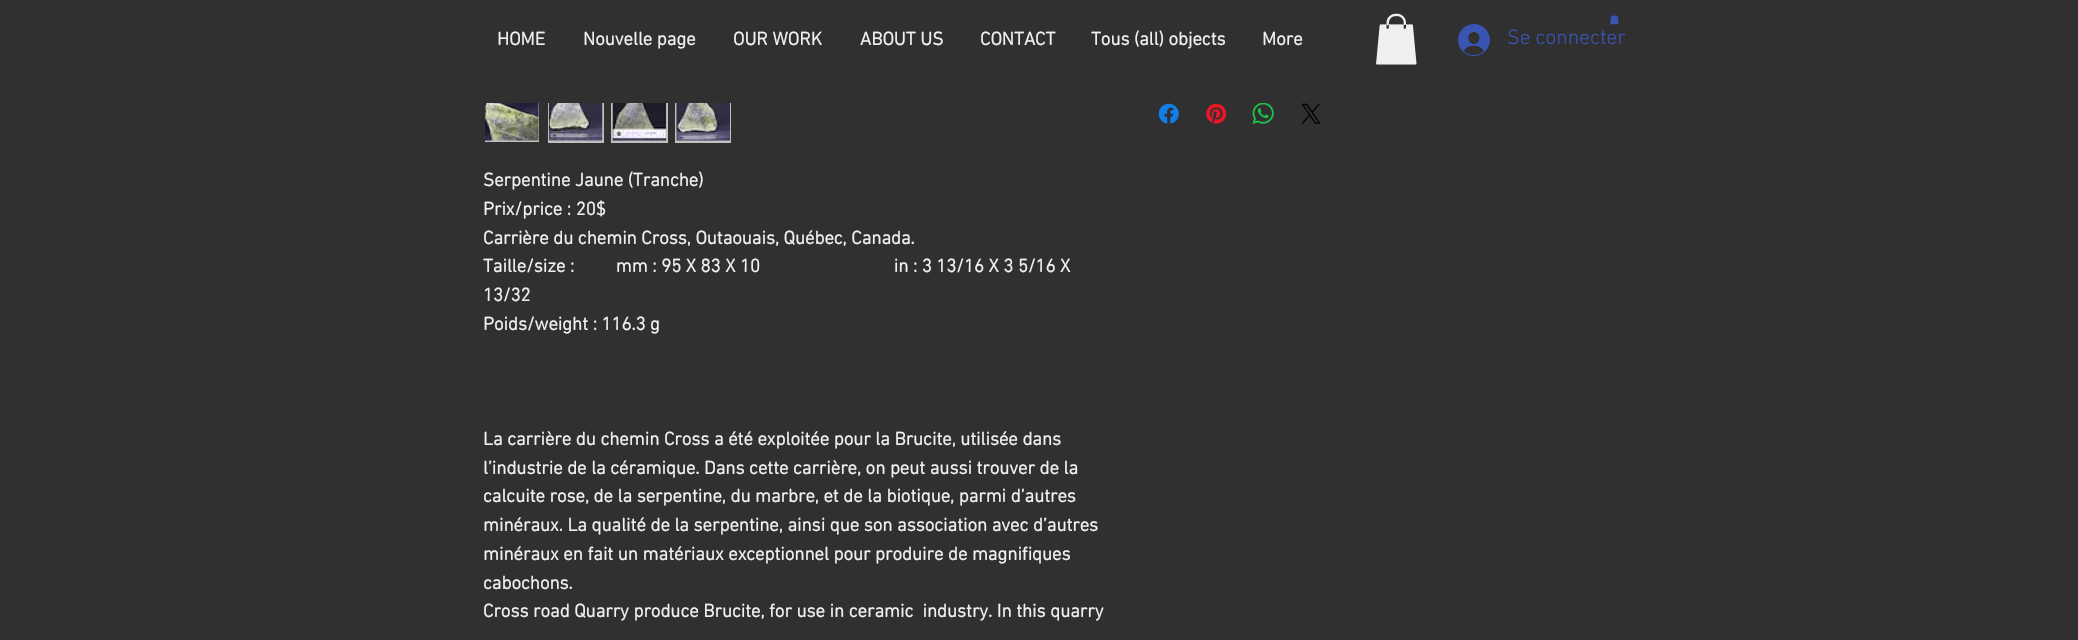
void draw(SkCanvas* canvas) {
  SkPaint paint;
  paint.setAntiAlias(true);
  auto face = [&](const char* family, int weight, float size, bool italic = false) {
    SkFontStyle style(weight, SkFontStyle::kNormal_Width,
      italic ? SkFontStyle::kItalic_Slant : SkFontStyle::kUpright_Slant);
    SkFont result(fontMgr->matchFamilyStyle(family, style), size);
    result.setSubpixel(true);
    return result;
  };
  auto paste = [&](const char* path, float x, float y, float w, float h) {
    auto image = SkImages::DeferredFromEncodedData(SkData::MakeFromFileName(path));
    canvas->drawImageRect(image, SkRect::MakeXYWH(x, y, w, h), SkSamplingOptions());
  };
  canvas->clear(0xff303030);
  paste("img/1.png", 1376, 13, 41, 52);
  paste("img/2.png", 1610, 13, 9, 12);
  paste("img/3.png", 1458, 24, 32, 32);
  paste("img/4.png", 1158, 103, 21, 21);
  paste("img/5.png", 1206, 103, 21, 21);
  paste("img/6.png", 1252, 103, 22, 21);
  paste("img/7.png", 1301, 103, 20, 21);
  paint.setColor(0xffc0c0c0);
  canvas->drawRect(SkRect::MakeXYWH(485, 103, 54, 39), paint);
  paste("img/8.png", 485, 103, 54, 38);
  canvas->drawRect(SkRect::MakeXYWH(548, 103, 56, 40), paint);
  paste("img/9.png", 548, 103, 55, 38);
  canvas->drawRect(SkRect::MakeXYWH(611, 103, 57, 40), paint);
  paste("img/10.png", 612, 103, 55, 38);
  canvas->drawRect(SkRect::MakeXYWH(675, 103, 56, 40), paint);
  paste("img/11.png", 676, 103, 54, 38);
  auto f0 = face("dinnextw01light", 700, 18.75f);
  paint.setColor(0xfff0f0f0);
  {
    const struct { const char* s; float x, y; } items[] = {
      {"HOME", 497, 45},
      {"Nouvelle page", 583, 45},
      {"OUR WORK", 733, 45},
      {"ABOUT US", 860, 45},
      {"CONTACT", 980, 45},
      {"Tous (all) objects", 1091, 45},
      {"More", 1262, 45},
    };
    for (auto [s, x, y] : items) {
      canvas->drawString(s, x, y, f0, paint);
    }
  }
  auto f1 = face("dinnextw01light", 300, 21.25f);
  paint.setColor(0xff3a54b4);
  canvas->drawString("Se connecter", 1507, 44, f1, paint);
  paint.setColor(0xfff0f0f0);
  {
    const struct { const char* s; float x, y; } items[] = {
      {"Serpentine Jaune (Tranche)", 483, 186},
      {"Prix/price : 20$", 483, 215},
      {"Carrière du chemin Cross, Outaouais, Québec, Canada.", 483, 244},
      {"Taille/size :         mm : 95 X 83 X 10                             in : 3 13/16 X 3 5/16 X", 483, 272},
      {"13/32", 483, 301},
      {"Poids/weight : 116.3 g", 483, 330},
      {"La carrière du chemin Cross a été exploitée pour la Brucite, utilisée dans", 483, 445},
      {"l’industrie de la céramique. Dans cette carrière, on peut aussi trouver de la", 483, 474},
      {"calcuite rose, de la serpentine, du marbre, et de la biotique, parmi d’autres", 483, 502},
      {"minéraux. La qualité de la serpentine, ainsi que son association avec d’autres", 483, 531},
      {"minéraux en fait un matériaux exceptionnel pour produire de magnifiques", 483, 560},
      {"cabochons.", 483, 589},
      {"Cross road Quarry produce Brucite, for use in ceramic  industry. In this quarry", 483, 617},
    };
    for (auto [s, x, y] : items) {
      canvas->drawString(s, x, y, f0, paint);
    }
  }
}
